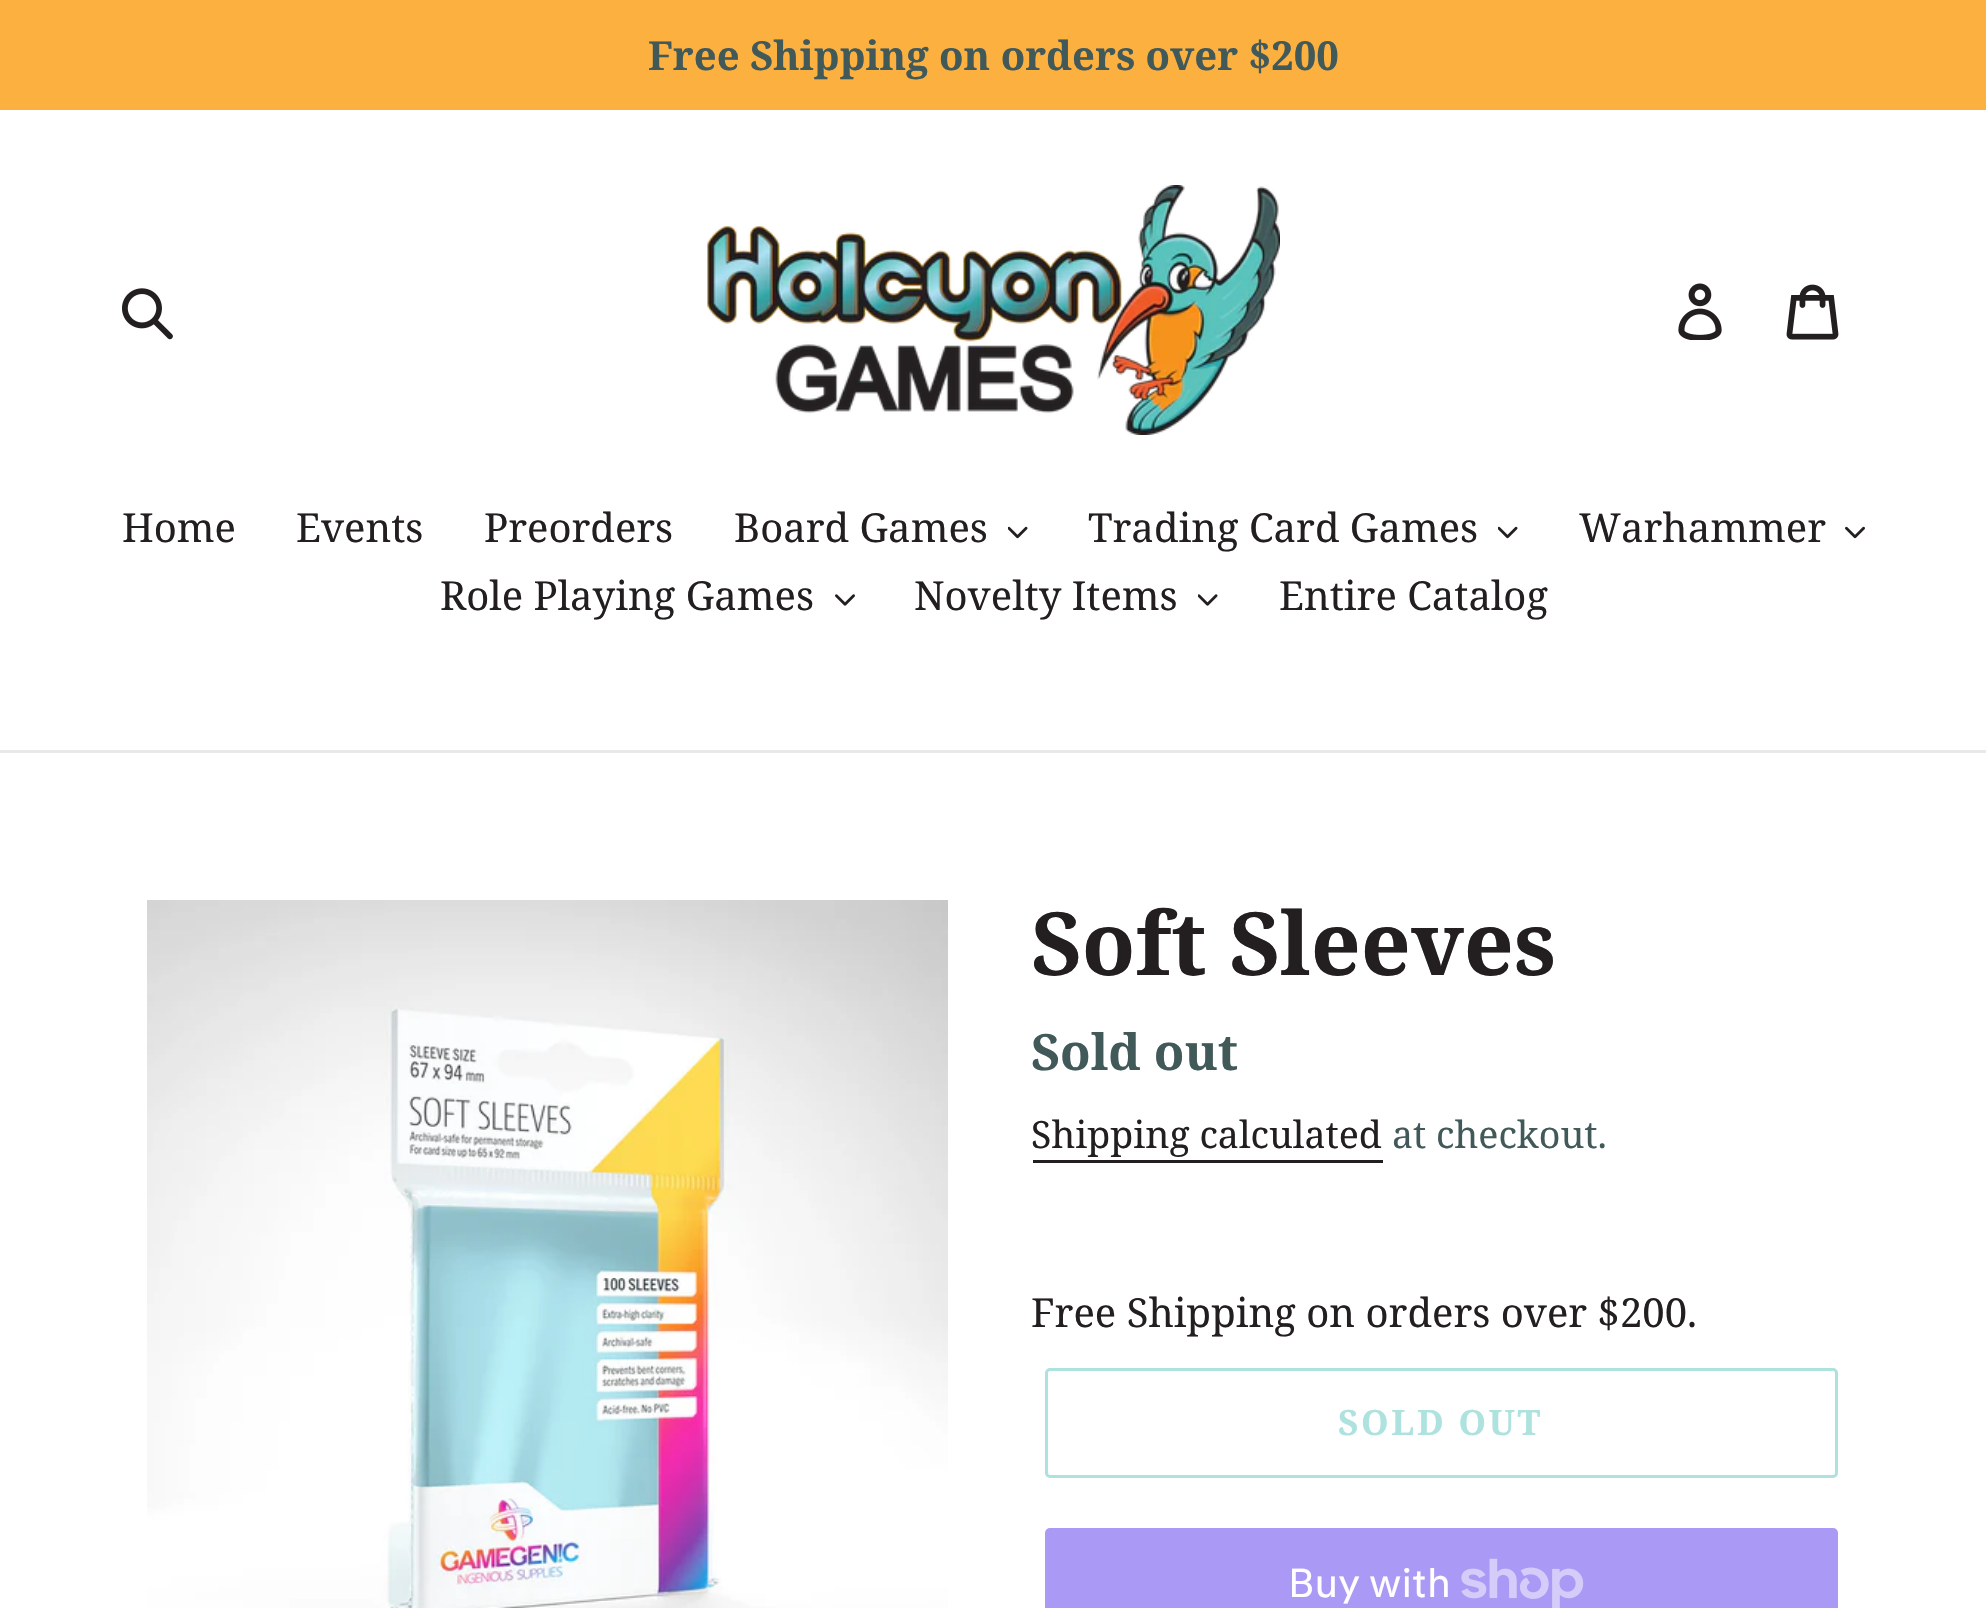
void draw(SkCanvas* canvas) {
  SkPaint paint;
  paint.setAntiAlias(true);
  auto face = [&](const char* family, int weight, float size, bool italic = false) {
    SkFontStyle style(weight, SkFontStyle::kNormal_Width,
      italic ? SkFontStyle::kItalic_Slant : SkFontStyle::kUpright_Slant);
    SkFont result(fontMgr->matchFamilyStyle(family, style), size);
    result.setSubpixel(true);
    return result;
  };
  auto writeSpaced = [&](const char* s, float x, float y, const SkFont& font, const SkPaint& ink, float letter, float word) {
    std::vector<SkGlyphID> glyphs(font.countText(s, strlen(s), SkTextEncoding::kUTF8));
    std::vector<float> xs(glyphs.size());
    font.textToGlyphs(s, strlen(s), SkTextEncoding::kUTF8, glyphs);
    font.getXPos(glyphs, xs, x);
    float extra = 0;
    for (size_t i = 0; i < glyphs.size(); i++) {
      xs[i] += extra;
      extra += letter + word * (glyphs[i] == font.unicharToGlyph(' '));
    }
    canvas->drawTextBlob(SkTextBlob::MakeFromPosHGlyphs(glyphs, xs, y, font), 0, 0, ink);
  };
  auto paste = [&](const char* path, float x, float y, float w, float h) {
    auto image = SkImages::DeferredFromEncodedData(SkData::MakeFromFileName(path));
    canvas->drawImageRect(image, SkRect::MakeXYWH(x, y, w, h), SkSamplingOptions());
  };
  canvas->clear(0xffffffff);
  paint.setColor(0xfffbb040);
  canvas->drawRect(SkRect::MakeXYWH(0, 0, 1986, 110), paint);
  paste("img/1.png", 122, 288, 51, 52);
  paste("img/2.png", 707, 185, 573, 250);
  paste("img/3.png", 1678, 283, 44, 57);
  paste("img/4.png", 1786, 284, 53, 56);
  paint.setColor(0xffe8e9eb);
  canvas->drawRect(SkRect::MakeXYWH(0, 750, 1986, 3), paint);
  paste("img/5.png", 1008, 526, 20, 13);
  paste("img/5.png", 1498, 526, 20, 13);
  paste("img/6.png", 1845, 526, 20, 13);
  paste("img/7.png", 835, 594, 20, 12);
  paste("img/8.png", 1198, 594, 20, 12);
  paste("img/9.png", 147, 900, 801, 708);
  paint.setColor(0xff231f20);
  canvas->drawRect(SkRect::MakeXYWH(1033, 1160, 350, 3), paint);
  paint.setStroke(true);
  paint.setStrokeWidth(3);
  paint.setColor(0xffade2de);
  canvas->drawRoundRect(SkRect::MakeXYWH(1046.5f, 1369.5f, 790, 107), 3.5f, 3.5f, paint);
  paint.setStroke(false);
  paint.setColor(0xffaa99f5);
  canvas->drawRoundRect(SkRect::MakeXYWH(1045, 1528, 793, 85), 5, 5, paint);
  paste("img/10.png", 1461, 1558, 123, 50);
  auto f0 = face("Noto Serif", 700, 40);
  paint.setColor(0xff42595a);
  canvas->drawString("Free Shipping on orders over $200", 648, 70, f0, paint);
  auto f1 = face("Noto Serif", 400, 40);
  paint.setColor(0xff231f20);
  {
    const struct { const char* s; float x, y; } items[] = {
      {"Home", 122, 542},
      {"Events", 296, 542},
      {"Preorders", 484, 542},
      {"Board Games", 734, 542},
      {"Trading Card Games", 1088, 542},
      {"Warhammer", 1579, 542},
      {"Role Playing Games", 440, 610},
      {"Novelty Items", 914, 610},
      {"Entire Catalog", 1279, 610},
    };
    for (auto [s, x, y] : items) {
      canvas->drawString(s, x, y, f1, paint);
    }
  }
  auto f2 = face("Noto Serif", 700, 87.5f);
  canvas->drawString("Soft Sleeves", 1031, 975, f2, paint);
  auto f3 = face("Noto Serif", 700, 50);
  paint.setColor(0xff42595a);
  canvas->drawString("Sold out", 1031, 1070, f3, paint);
  auto f4 = face("Noto Serif", 400, 37.5f);
  paint.setColor(0xff231f20);
  canvas->drawString("Shipping calculated", 1031, 1148, f4, paint);
  paint.setColor(0xff42595a);
  canvas->drawString("at checkout.", 1392, 1148, f4, paint);
  paint.setColor(0xff231f20);
  canvas->drawString("Free Shipping on orders over $200.", 1031, 1327, f1, paint);
  auto f5 = face("Noto Serif", 700, 35);
  paint.setColor(0xffade2de);
  writeSpaced("SOLD OUT", 1338, 1435, f5, paint, 2.75f, 0);
  auto f6 = face("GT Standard", 400, 40);
  paint.setColor(0xffffffff);
  canvas->drawString("Buy with", 1288, 1597, f6, paint);
}
